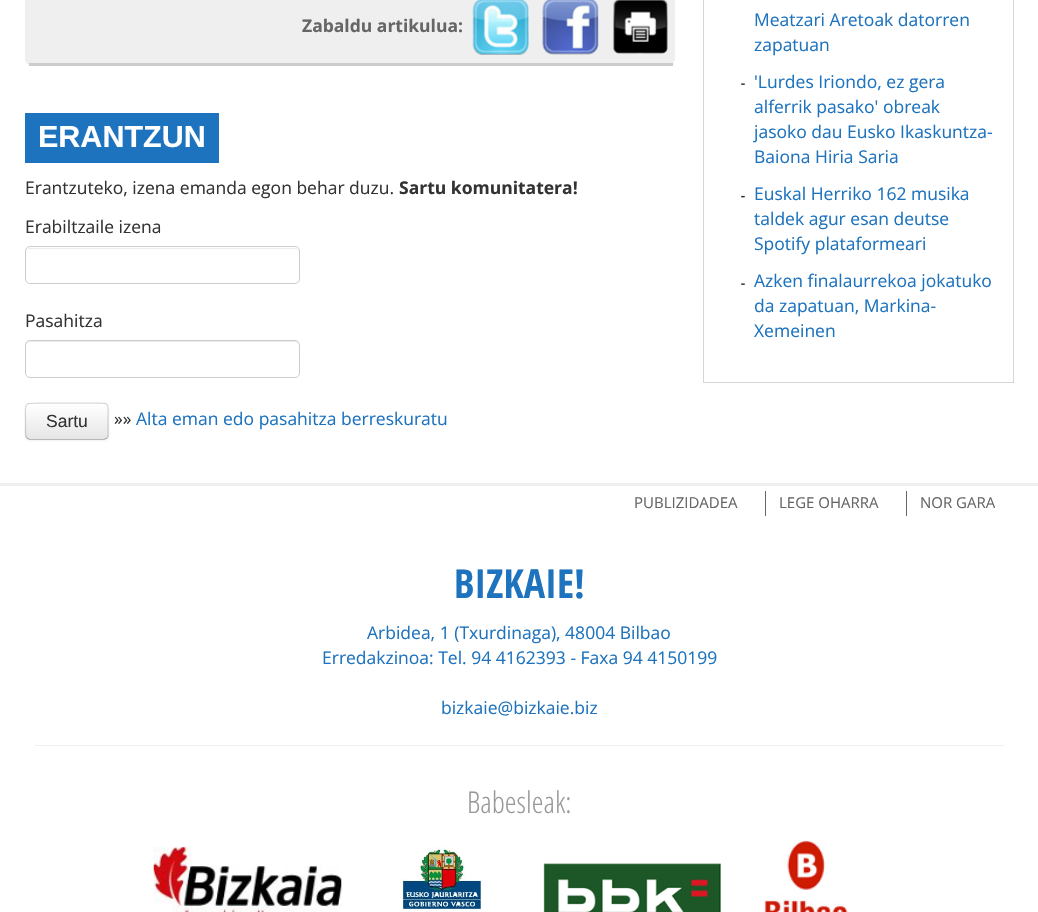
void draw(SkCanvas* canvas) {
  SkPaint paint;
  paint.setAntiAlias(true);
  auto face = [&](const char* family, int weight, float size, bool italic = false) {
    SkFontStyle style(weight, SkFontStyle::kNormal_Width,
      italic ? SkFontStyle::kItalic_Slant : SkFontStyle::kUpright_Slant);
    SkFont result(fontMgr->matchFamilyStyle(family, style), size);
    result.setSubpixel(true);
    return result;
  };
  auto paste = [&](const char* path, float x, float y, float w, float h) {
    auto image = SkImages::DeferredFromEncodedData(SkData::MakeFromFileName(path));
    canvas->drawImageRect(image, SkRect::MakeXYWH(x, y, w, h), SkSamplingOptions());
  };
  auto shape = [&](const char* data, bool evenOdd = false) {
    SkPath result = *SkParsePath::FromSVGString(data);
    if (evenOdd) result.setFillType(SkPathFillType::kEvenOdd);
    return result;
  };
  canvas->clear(0xffffffff);
  paint.setColor(0xffefefef);
  canvas->drawRoundRect(SkRect::MakeXYWH(25, -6, 650, 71), 6, 6, paint);
  paint.setColor(0xffcccccc);
  canvas->drawRect(SkRect::MakeXYWH(29, 63, 644, 3), paint);
  paste("img/1.png", 472, 0, 57, 55);
  paste("img/2.png", 542, 0, 57, 55);
  paste("img/3.png", 613, 0, 55, 54);
  paint.setColor(0xff1e73be);
  canvas->drawRect(SkRect::MakeXYWH(25, 113, 194, 50), paint);
  paint.setColor(0xffececec);
  canvas->drawPath(shape("M30 249H296L299 251V252C299 250 297 248 295 248H30C28 248 26 250 26 252C26 250 28 249 30 249Z"), paint);
  paint.setStroke(true);
  paint.setStrokeWidth(1);
  paint.setColor(0xffcccccc);
  canvas->drawRoundRect(SkRect::MakeXYWH(25.5f, 246.5f, 274, 37), 4.5f, 4.5f, paint);
  paint.setStroke(false);
  paint.setColor(0xffececec);
  canvas->drawPath(shape("M30 342H295C297 342 299 344 299 346C299 343 298 341 295 341H30C27 341 26 343 26 346C26 344 28 342 30 342Z"), paint);
  paint.setStroke(true);
  paint.setColor(0xffcccccc);
  canvas->drawRoundRect(SkRect::MakeXYWH(25.5f, 340.5f, 274, 37), 4.5f, 4.5f, paint);
  paint.setStroke(false);
  paint.setColor(0x0d000000);
  paint.setMaskFilter(SkMaskFilter::MakeBlur(kNormal_SkBlurStyle, 1));
  canvas->drawRoundRect(SkRect::MakeXYWH(25, 404, 84, 37), 5, 5, paint);
  paint.setMaskFilter(nullptr);
  paint.setColor(0xfff5f5f5);
  canvas->drawRoundRect(SkRect::MakeXYWH(25, 403, 84, 37), 5, 5, paint);
  canvas->save();
  canvas->clipPath(shape("M30 403H104C107 403 109 405 109 408V435C109 438 107 440 104 440H30C27 440 25 438 25 435V408C25 405 27 403 30 403Z"), true);
  {
    const SkColor colors[] = {0xffffffff, 0xffe6e6e6};
    const float stops[] = {0, 1};
    const SkPoint ends[] = {{67, 404}, {67, 439}};
    paint.setShader(SkGradientShader::MakeLinear(ends, colors, stops, 2, SkTileMode::kClamp));
    paint.setAlpha(255);
  }
  canvas->drawRect(SkRect::MakeXYWH(25, 404, 84, 35), paint);
  canvas->restore();
  paint.setStroke(true);
  paint.setStrokeWidth(1.2f);
  paint.setShader(nullptr);
  paint.setColor(0x40000000);
  canvas->drawPath(shape("M107 438L104 439.5H29.5L27 438"), paint);
  paint.setColor(0x26000000);
  canvas->drawPath(shape("M27 438C25 436 25.5 433 25.5 430.5V421C25.5 401.5 22.5 403 42.5 403H91.5C111.5 403 108 401.5 108 421V430.5C108 433 109 436 107 438"), paint);
  paint.setStrokeWidth(1);
  paint.setColor(0xffd6d6d6);
  canvas->drawRect(SkRect::MakeXYWH(703.5f, -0.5f, 310, 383), paint);
  paste("img/4.png", 741, 83, 4, 2);
  paste("img/5.png", 741, 195, 4, 3);
  paste("img/4.png", 741, 283, 4, 2);
  paint.setStroke(false);
  {
    const struct { float x, y, w, h; SkColor color; } items[] = {
      {0, 483, 1038, 3, 0xffefefef},
      {765, 491, 1, 25, 0xff666666},
      {906, 491, 1, 25, 0xff666666},
      {35, 745, 969, 1, 0xffefefef},
    };
    for (auto [x, y, w, h, color] : items) {
      paint.setColor(color);
      canvas->drawRect(SkRect::MakeXYWH(x, y, w, h), paint);
    }
  }
  paste("img/6.png", 153, 847, 189, 65);
  paste("img/7.png", 400, 846, 84, 64);
  paste("img/8.png", 543, 863, 179, 49);
  paste("img/9.png", 764, 839, 84, 73);
  auto f0 = face("Open Sans", 700, 17.5f);
  paint.setColor(0xff666666);
  canvas->drawString("Zabaldu artikulua:", 302, 32, f0, paint);
  auto f1 = face("Liberation Sans", 700, 30.5f);
  paint.setColor(0xffffffff);
  canvas->drawString("ERANTZUN", 38, 147, f1, paint);
  auto f2 = face("Open Sans", 400, 17.5f);
  paint.setColor(0xff333333);
  canvas->drawString("Erantzuteko, izena emanda egon behar duzu.", 25, 194, f2, paint);
  canvas->drawString("Sartu komunitatera!", 399, 194, f0, paint);
  canvas->drawString("Erabiltzaile izena", 25, 233, f2, paint);
  canvas->drawString("Pasahitza", 25, 327, f2, paint);
  auto f3 = face("Liberation Sans", 400, 17.5f);
  canvas->drawString("Sartu", 46, 427, f3, paint);
  canvas->drawString("»»", 114, 425, f2, paint);
  paint.setColor(0xff1e73be);
  {
    const struct { const char* s; float x, y; } items[] = {
      {"Alta eman edo pasahitza berreskuratu", 136, 425},
      {"Meatzari Aretoak datorren", 754, 26},
      {"zapatuan", 754, 51},
      {"'Lurdes Iriondo, ez gera", 754, 88},
      {"alferrik pasako' obreak", 754, 113},
      {"jasoko dau Eusko Ikaskuntza-", 754, 138},
      {"Baiona Hiria Saria", 754, 163},
      {"Euskal Herriko 162 musika", 754, 200},
      {"taldek agur esan deutse", 754, 225},
      {"Spotify plataformeari", 754, 250},
      {"Azken finalaurrekoa jokatuko", 754, 287},
      {"da zapatuan, Markina-", 754, 312},
      {"Xemeinen", 754, 337},
    };
    for (auto [s, x, y] : items) {
      canvas->drawString(s, x, y, f2, paint);
    }
  }
  auto f4 = face("Open Sans", 400, 15);
  paint.setColor(0xff666666);
  {
    const struct { const char* s; float x, y; } items[] = {
      {"PUBLIZIDADEA", 634, 508},
      {"LEGE OHARRA", 779, 508},
      {"NOR GARA", 920, 508},
    };
    for (auto [s, x, y] : items) {
      canvas->drawString(s, x, y, f4, paint);
    }
  }
  auto f5 = face("Open Sans Condensed", 700, 40);
  paint.setColor(0xff1e73be);
  canvas->drawString("BIZKAIE!", 454, 598, f5, paint);
  {
    const struct { const char* s; float x, y; } items[] = {
      {"Arbidea, 1 (Txurdinaga), 48004 Bilbao", 367, 639},
      {"Erredakzinoa: Tel. 94 4162393 - Faxa 94 4150199", 322, 664},
      {"bizkaie@bizkaie.biz", 441, 714},
    };
    for (auto [s, x, y] : items) {
      canvas->drawString(s, x, y, f2, paint);
    }
  }
  auto f6 = face("Open Sans Condensed", 300, 30);
  paint.setColor(0xff999999);
  canvas->drawString("Babesleak:", 467, 813, f6, paint);
}
